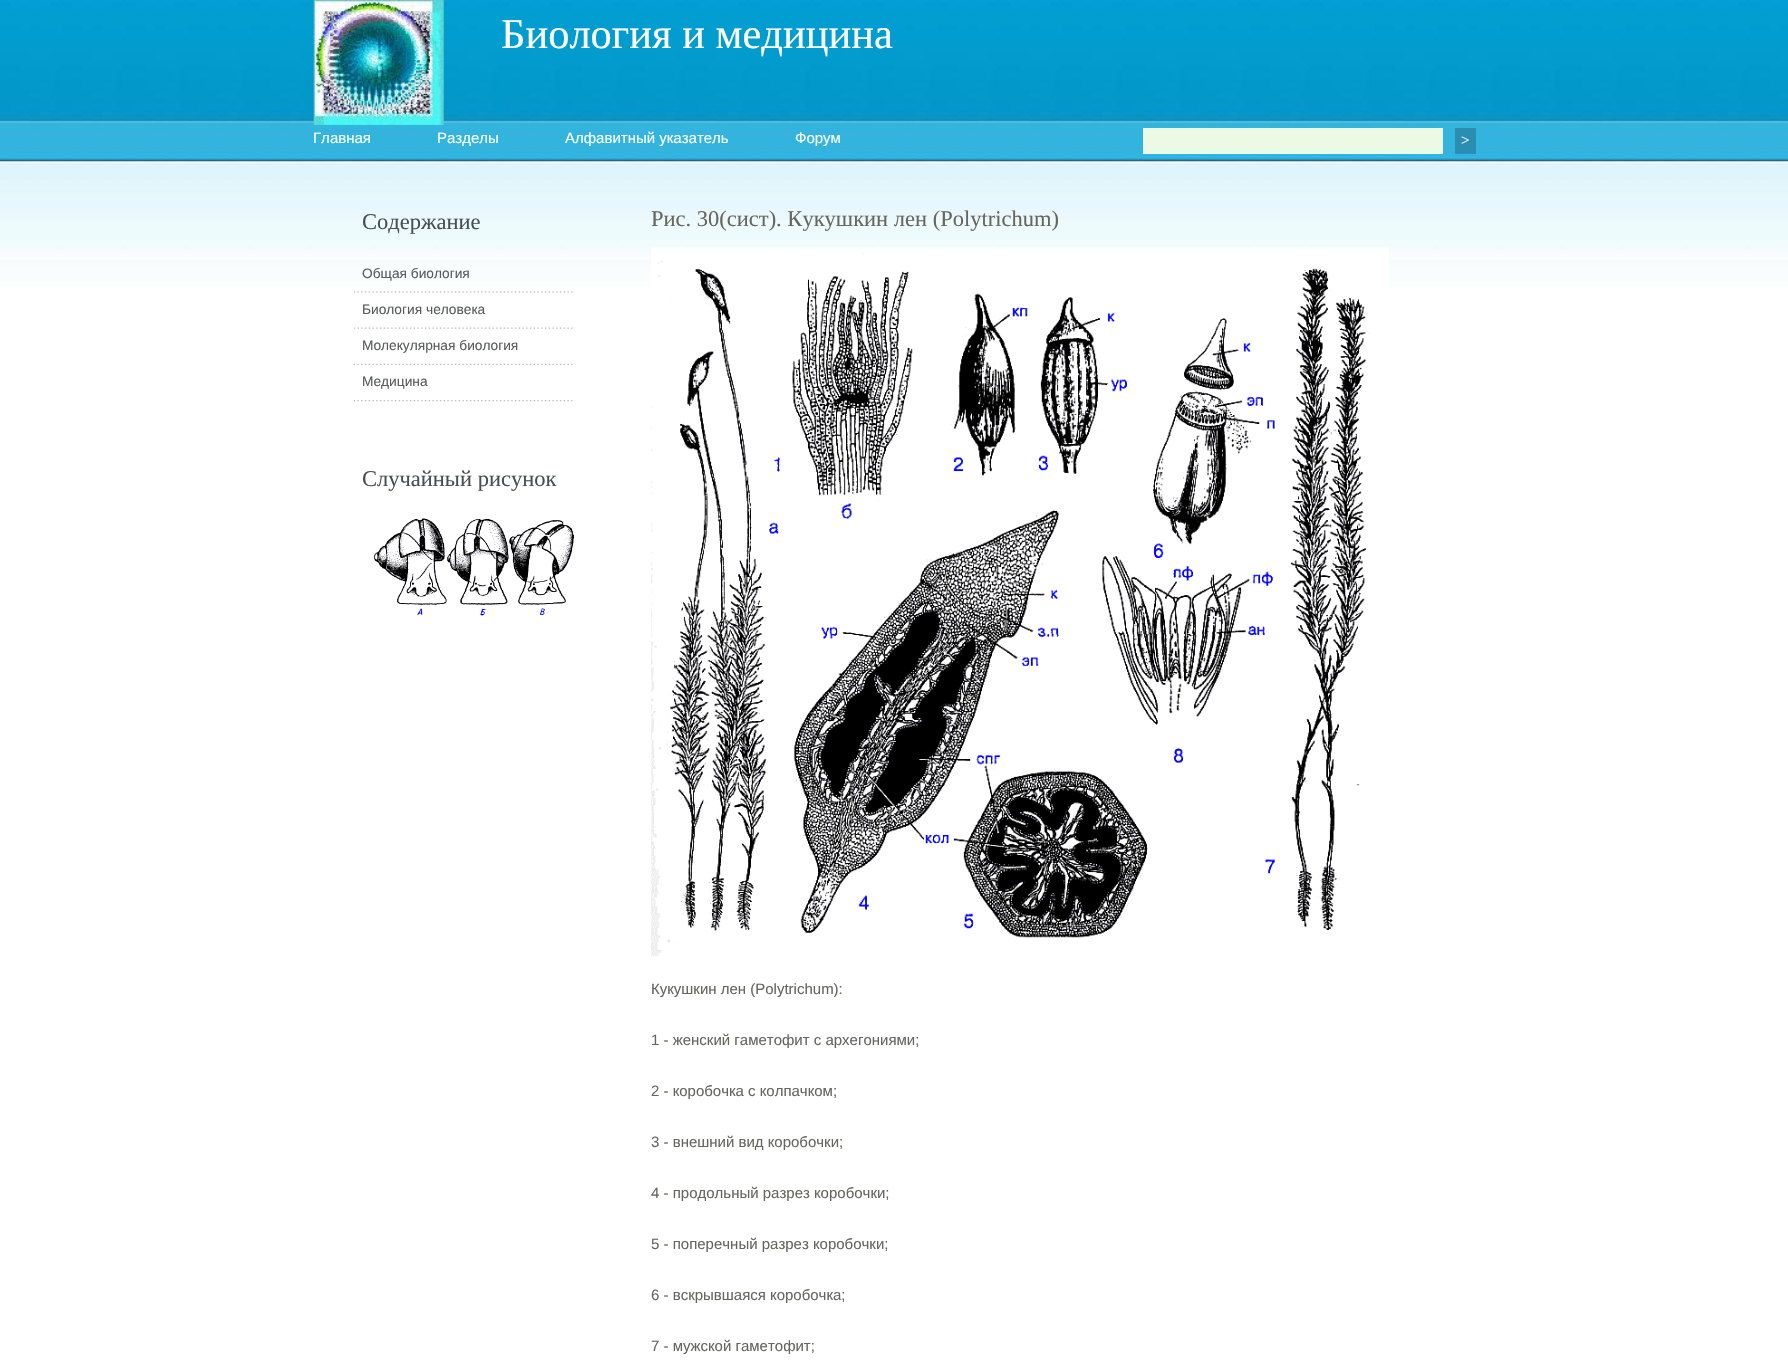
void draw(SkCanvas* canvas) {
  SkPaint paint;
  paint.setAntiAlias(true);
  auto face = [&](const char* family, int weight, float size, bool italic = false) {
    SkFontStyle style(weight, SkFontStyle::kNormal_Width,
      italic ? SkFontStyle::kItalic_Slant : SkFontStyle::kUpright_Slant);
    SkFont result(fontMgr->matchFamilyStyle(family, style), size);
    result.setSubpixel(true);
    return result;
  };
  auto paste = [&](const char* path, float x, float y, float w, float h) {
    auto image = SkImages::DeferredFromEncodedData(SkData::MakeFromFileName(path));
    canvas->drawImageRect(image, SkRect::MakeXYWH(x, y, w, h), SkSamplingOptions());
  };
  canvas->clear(0xffffffff);
  paste("img/1.png", 0, 0, 1788, 287);
  paste("img/2.png", 313, 0, 131, 125);
  paint.setColor(0xffecf9e4);
  canvas->drawRect(SkRect::MakeXYWH(1143, 128, 300, 26), paint);
  paint.setColor(0xff2c8db3);
  canvas->drawRect(SkRect::MakeXYWH(1455, 128, 21, 26), paint);
  paste("img/3.png", 354, 291, 221, 2);
  paste("img/4.png", 354, 327, 221, 2);
  paste("img/5.png", 353, 363, 222, 2);
  paste("img/6.png", 353, 400, 222, 2);
  paste("img/7.png", 373, 518, 201, 98);
  paste("img/8.png", 651, 247, 738, 710);
  auto f0 = face("Liberation Serif", 400, 42.5f);
  paint.setColor(0xffffffff);
  canvas->drawString("Биология и медицина", 501, 48, f0, paint);
  auto f1 = face("Liberation Sans", 400, 15);
  {
    const struct { const char* s; float x, y; } items[] = {
      {"Главная", 313, 143},
      {"Разделы", 437, 143},
      {"Алфавитный указатель", 565, 143},
      {"Форум", 795, 143},
    };
    for (auto [s, x, y] : items) {
      canvas->drawString(s, x, y, f1, paint);
    }
  }
  auto f2 = face("Liberation Serif", 400, 15);
  canvas->drawString(">", 1461, 145, f2, paint);
  auto f3 = face("Liberation Serif", 400, 22.5f);
  paint.setColor(0xff464f54);
  canvas->drawString("Содержание", 362, 229, f3, paint);
  auto f4 = face("Liberation Sans", 400, 13.75f);
  paint.setColor(0xff585d60);
  {
    const struct { const char* s; float x, y; } items[] = {
      {"Общая биология", 362, 278},
      {"Биология человека", 362, 314},
      {"Молекулярная биология", 362, 350},
      {"Медицина", 362, 386},
    };
    for (auto [s, x, y] : items) {
      canvas->drawString(s, x, y, f4, paint);
    }
  }
  paint.setColor(0xff464f54);
  canvas->drawString("Случайный рисунок", 362, 486, f3, paint);
  paint.setColor(0xff66665e);
  canvas->drawString("Рис. 30(сист). Кукушкин лен (Polytrichum)", 651, 226, f3, paint);
  {
    const struct { const char* s; float x, y; } items[] = {
      {"Кукушкин лен (Polytrichum):", 651, 994},
      {"1 - женский гаметофит с архегониями;", 651, 1045},
      {"2 - коробочка с колпачком;", 651, 1096},
      {"3 - внешний вид коробочки;", 651, 1147},
      {"4 - продольный разрез коробочки;", 651, 1198},
      {"5 - поперечный разрез коробочки;", 651, 1249},
      {"6 - вскрывшаяся коробочка;", 651, 1300},
      {"7 - мужской гаметофит;", 651, 1351},
    };
    for (auto [s, x, y] : items) {
      canvas->drawString(s, x, y, f1, paint);
    }
  }
}
